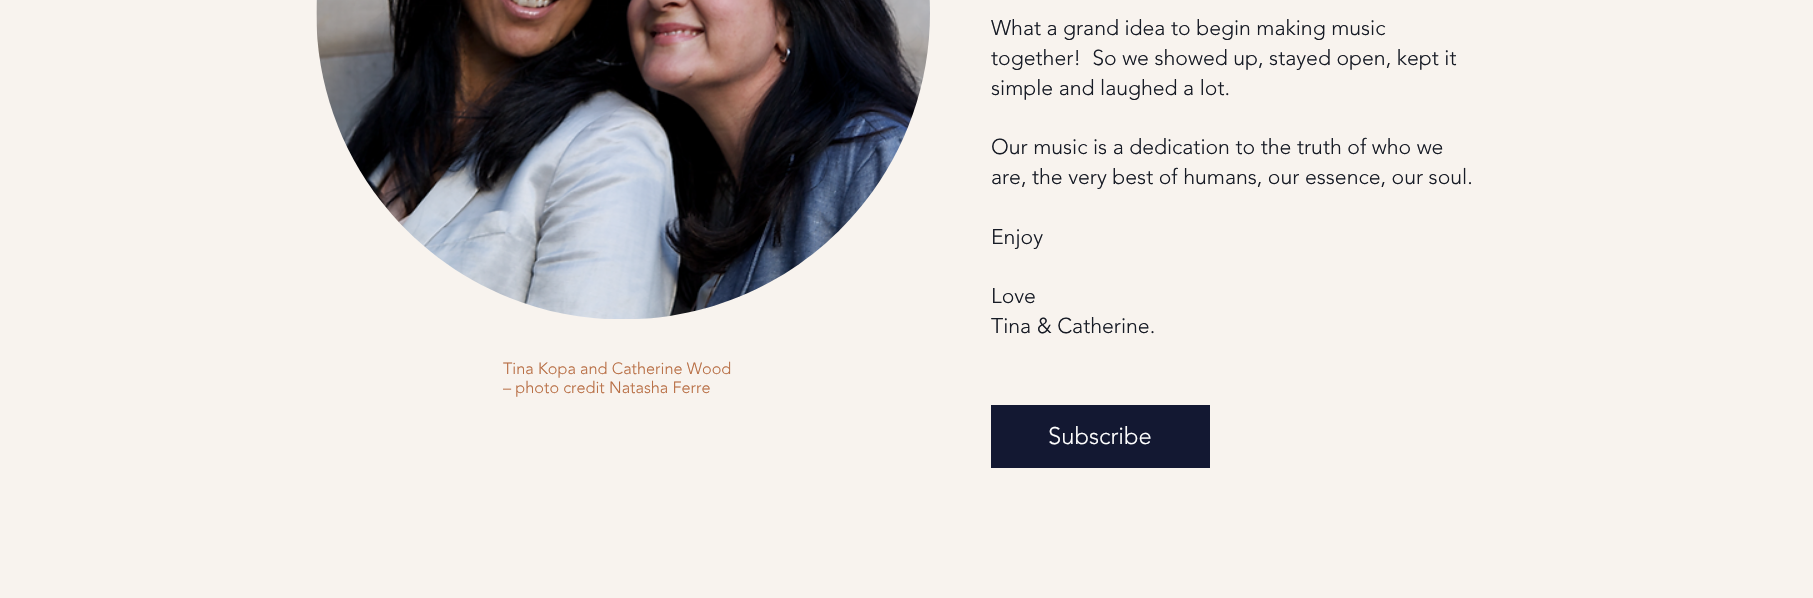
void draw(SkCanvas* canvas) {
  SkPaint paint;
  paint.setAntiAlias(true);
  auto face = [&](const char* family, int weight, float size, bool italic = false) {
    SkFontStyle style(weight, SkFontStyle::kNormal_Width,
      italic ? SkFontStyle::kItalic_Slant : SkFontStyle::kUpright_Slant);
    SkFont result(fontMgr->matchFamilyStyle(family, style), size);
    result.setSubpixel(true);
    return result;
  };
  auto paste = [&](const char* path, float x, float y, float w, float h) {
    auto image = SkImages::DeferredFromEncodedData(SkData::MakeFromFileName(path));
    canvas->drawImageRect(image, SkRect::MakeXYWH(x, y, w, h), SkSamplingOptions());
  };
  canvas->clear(0xfff8f3ee);
  paste("img/1.png", 316, 0, 614, 319);
  paint.setColor(0xff131832);
  canvas->drawRect(SkRect::MakeXYWH(991, 405, 219, 63), paint);
  auto f0 = face("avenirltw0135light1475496", 300, 21.25f);
  paint.setColor(0xff171b25);
  {
    const struct { const char* s; float x, y; } items[] = {
      {"What a grand idea to begin making music", 991, 35},
      {"together!  So we showed up, stayed open, kept it", 991, 65},
      {"simple and laughed a lot.", 991, 95},
      {"Our music is a dedication to the truth of who we", 991, 154},
      {"are, the very best of humans, our essence, our soul.", 991, 184},
      {"Enjoy", 991, 244},
      {"Love", 991, 303},
      {"Tina & Catherine.", 991, 333},
    };
    for (auto [s, x, y] : items) {
      canvas->drawString(s, x, y, f0, paint);
    }
  }
  auto f1 = face("avenirltw0135light1475496", 300, 16.25f);
  paint.setColor(0xffb86e44);
  canvas->drawString("Tina Kopa and Catherine Wood", 503, 374, f1, paint);
  canvas->drawString("– photo credit Natasha Ferre", 503, 393, f1, paint);
  auto f2 = face("avenirltw0135light1475496", 300, 23.75f);
  paint.setColor(0xffffffff);
  canvas->drawString("Subscribe", 1048, 444, f2, paint);
}
